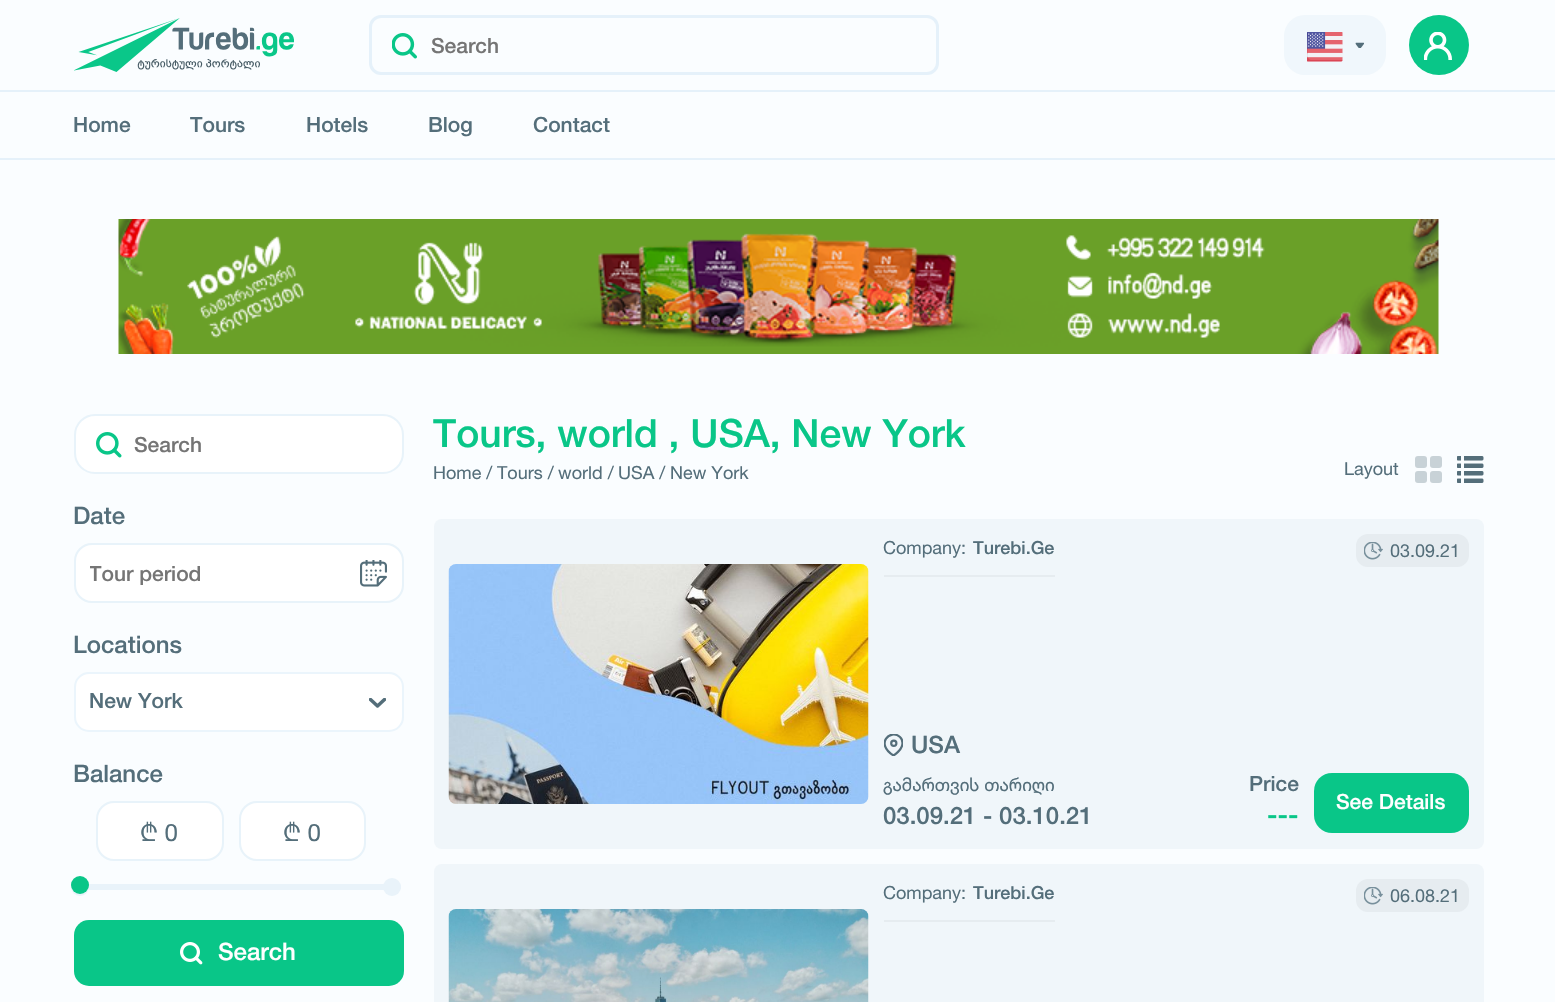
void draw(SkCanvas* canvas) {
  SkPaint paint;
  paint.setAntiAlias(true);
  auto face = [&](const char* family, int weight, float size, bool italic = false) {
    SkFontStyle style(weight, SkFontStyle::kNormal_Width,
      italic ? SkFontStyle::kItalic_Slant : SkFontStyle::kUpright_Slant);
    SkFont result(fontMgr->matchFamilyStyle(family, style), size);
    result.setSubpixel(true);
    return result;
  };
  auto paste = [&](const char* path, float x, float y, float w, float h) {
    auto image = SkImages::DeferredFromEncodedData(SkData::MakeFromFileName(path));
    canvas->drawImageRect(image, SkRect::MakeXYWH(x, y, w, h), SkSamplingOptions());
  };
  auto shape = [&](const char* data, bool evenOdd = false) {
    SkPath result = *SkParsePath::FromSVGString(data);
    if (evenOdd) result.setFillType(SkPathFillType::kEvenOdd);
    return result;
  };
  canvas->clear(0xfffafdff);
  paint.setColor(0xffe5f1fa);
  canvas->drawRect(SkRect::MakeXYWH(0, 158, 1555, 2), paint);
  canvas->drawRect(SkRect::MakeXYWH(0, 90, 1555, 2), paint);
  paste("img/1.png", 74, 18, 220, 54);
  paint.setStroke(true);
  paint.setStrokeWidth(3);
  canvas->drawRoundRect(SkRect::MakeXYWH(370.5f, 16.5f, 567, 57), 10.5f, 10.5f, paint);
  paste("img/2.png", 392, 33, 25, 26);
  paint.setStroke(false);
  paint.setColor(0xfff0f7fc);
  canvas->drawRoundRect(SkRect::MakeXYWH(1284, 15, 102, 60), 21, 21, paint);
  paste("img/3.png", 1307, 32, 36, 30);
  paste("img/4.png", 1355, 42, 9, 6);
  paint.setColor(0xff09c688);
  canvas->drawCircle(1439, 45, 30, paint);
  paste("img/5.png", 1424, 32, 28, 28);
  paste("img/6.png", 118, 219, 1321, 135);
  paint.setColor(0xffffffff);
  canvas->drawRoundRect(SkRect::MakeXYWH(75, 415, 328, 58), 20, 20, paint);
  paint.setStroke(true);
  paint.setStrokeWidth(2);
  paint.setColor(0xffe8f3fa);
  canvas->drawRoundRect(SkRect::MakeXYWH(75, 415, 328, 58), 20, 20, paint);
  paste("img/7.png", 96, 432, 26, 26);
  paint.setStroke(false);
  paint.setColor(0xffffffff);
  canvas->drawRoundRect(SkRect::MakeXYWH(75, 544, 328, 58), 17, 17, paint);
  paint.setStroke(true);
  paint.setColor(0xffe8f3fa);
  canvas->drawRoundRect(SkRect::MakeXYWH(75, 544, 328, 58), 17, 17, paint);
  paste("img/8.png", 360, 560, 27, 27);
  paint.setStroke(false);
  paint.setColor(0xffffffff);
  canvas->drawRoundRect(SkRect::MakeXYWH(75, 673, 328, 58), 14, 14, paint);
  paint.setStroke(true);
  paint.setColor(0xffebf5fc);
  canvas->drawRoundRect(SkRect::MakeXYWH(75, 673, 328, 58), 14, 14, paint);
  canvas->save();
  canvas->clipRect(SkRect::MakeXYWH(369, 698, 17, 10));
  paint.setStrokeWidth(3.5f);
  paint.setStrokeCap(SkPaint::kRound_Cap);
  paint.setStrokeJoin(SkPaint::kRound_Join);
  paint.setColor(0xff546e7a);
  canvas->drawPath(shape("M370.5 699.5L377.5 706L384.5 699.5"), paint);
  canvas->restore();
  paint.setStroke(false);
  paint.setColor(0xffffffff);
  canvas->drawRoundRect(SkRect::MakeXYWH(97, 802, 126, 58), 17, 17, paint);
  paint.setStroke(true);
  paint.setStrokeWidth(2);
  paint.setStrokeCap(SkPaint::kButt_Cap);
  paint.setStrokeJoin(SkPaint::kMiter_Join);
  paint.setColor(0xffe8f3fa);
  canvas->drawRoundRect(SkRect::MakeXYWH(97, 802, 126, 58), 17, 17, paint);
  paint.setStroke(false);
  paint.setColor(0xffffffff);
  canvas->drawRoundRect(SkRect::MakeXYWH(240, 802, 125, 58), 17, 17, paint);
  paint.setStroke(true);
  paint.setColor(0xffe8f3fa);
  canvas->drawRoundRect(SkRect::MakeXYWH(240, 802, 125, 58), 17, 17, paint);
  paint.setStroke(false);
  paint.setColor(0xffe9f3fa);
  canvas->drawRoundRect(SkRect::MakeXYWH(86, 884, 315, 6), 3, 3, paint);
  canvas->drawCircle(80, 887, 9, paint);
  paint.setColor(0xff09c688);
  canvas->drawCircle(80, 885, 9, paint);
  paint.setColor(0xffe9f3fa);
  canvas->drawCircle(392, 887, 9, paint);
  paint.setColor(0xff09c688);
  canvas->drawRoundRect(SkRect::MakeXYWH(74, 920, 330, 66), 15, 15, paint);
  paste("img/9.png", 180, 942, 23, 23);
  paint.setColor(0xffc8d2d7);
  canvas->drawRoundRect(SkRect::MakeXYWH(1415, 456, 12, 12), 3, 3, paint);
  canvas->drawRoundRect(SkRect::MakeXYWH(1430, 456, 12, 12), 3, 3, paint);
  canvas->drawRoundRect(SkRect::MakeXYWH(1415, 471, 12, 12), 3, 3, paint);
  canvas->drawRoundRect(SkRect::MakeXYWH(1430, 471, 12, 12), 3, 3, paint);
  paste("img/10.png", 1457, 456, 27, 27);
  paint.setColor(0xfff0f6fa);
  canvas->drawRoundRect(SkRect::MakeXYWH(434, 519, 1050, 330), 8, 8, paint);
  paste("img/11.png", 448, 564, 421, 240);
  paint.setColor(0xffe6ecf0);
  canvas->drawRect(SkRect::MakeXYWH(884, 575, 171, 2), paint);
  canvas->drawRoundRect(SkRect::MakeXYWH(1356, 534, 113, 33), 12, 12, paint);
  paste("img/12.png", 1364, 542, 19, 18);
  canvas->save();
  canvas->clipRect(SkRect::MakeXYWH(884, 734, 19, 22));
  paint.setStroke(true);
  paint.setStrokeWidth(2.2f);
  paint.setStrokeCap(SkPaint::kRound_Cap);
  paint.setStrokeJoin(SkPaint::kRound_Join);
  paint.setColor(0xff546e7a);
  canvas->drawPath(shape("M902.5 743C902.5 750 893.5 755.5 893.5 755.5C874.5 743.5 890.5 728.5 900 737C901.5 738.5 902.5 741 902.5 743Z"), paint);
  canvas->restore();
  paint.setStrokeCap(SkPaint::kButt_Cap);
  paint.setStrokeJoin(SkPaint::kMiter_Join);
  canvas->drawCircle(893.8f, 743.3f, 2.6f, paint);
  paint.setStroke(false);
  paint.setColor(0xff09c688);
  canvas->drawRoundRect(SkRect::MakeXYWH(1314, 773, 155, 60), 18, 18, paint);
  paint.setColor(0xfff0f6fa);
  canvas->drawRoundRect(SkRect::MakeXYWH(434, 864, 1050, 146), 8, 8, paint);
  paint.setColor(0xffe6ecf0);
  canvas->drawRect(SkRect::MakeXYWH(884, 920, 171, 2), paint);
  canvas->drawRoundRect(SkRect::MakeXYWH(1356, 879, 113, 33), 12, 12, paint);
  paste("img/12.png", 1364, 887, 19, 18);
  paste("img/13.png", 448, 909, 421, 93);
  auto f0 = face("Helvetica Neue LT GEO", 500, 21);
  paint.setColor(0xff757575);
  canvas->drawString("Search", 431, 53, f0, paint);
  paint.setColor(0xff546e7a);
  {
    const struct { const char* s; float x, y; } items[] = {
      {"Home", 73, 132},
      {"Tours", 190, 132},
      {"Hotels", 306, 132},
      {"Blog", 428, 132},
      {"Contact", 533, 132},
    };
    for (auto [s, x, y] : items) {
      canvas->drawString(s, x, y, f0, paint);
    }
  }
  paint.setColor(0xff757575);
  canvas->drawString("Search", 134, 452, f0, paint);
  auto f1 = face("Helvetica Neue LT GEO", 500, 24);
  paint.setColor(0xff546e7a);
  canvas->drawString("Date", 73, 524, f1, paint);
  canvas->save();
  canvas->clipRect(SkRect::MakeXYWH(90, 561, 297, 24));
  paint.setColor(0xff757575);
  canvas->drawString("Tour period", 89, 581, f0, paint);
  canvas->restore();
  paint.setColor(0xff546e7a);
  canvas->drawString("Locations", 73, 653, f1, paint);
  canvas->drawString("New York", 89, 708, f0, paint);
  canvas->drawString("Balance", 73, 782, f1, paint);
  auto f2 = face("Helvetica Neue LT GEO", 400, 24);
  canvas->drawString("₾ 0", 140, 841, f2, paint);
  canvas->drawString("₾ 0", 283, 841, f2, paint);
  paint.setColor(0xffffffff);
  canvas->drawString("Search", 218, 960, f1, paint);
  auto f3 = face("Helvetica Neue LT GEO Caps", 500, 39);
  paint.setColor(0xff09c688);
  canvas->drawString("Tours, world , USA, New York", 433, 447, f3, paint);
  auto f4 = face("Helvetica Neue LT GEO", 400, 18);
  paint.setColor(0xff546e7a);
  {
    const struct { const char* s; float x, y; } items[] = {
      {"Home /", 433, 479},
      {"Tours /", 497, 479},
      {"world /", 558, 479},
      {"USA /", 618, 479},
      {"New York", 670, 479},
      {"Layout", 1344, 475},
      {"Company:", 883, 554},
    };
    for (auto [s, x, y] : items) {
      canvas->drawString(s, x, y, f4, paint);
    }
  }
  auto f5 = face("Helvetica Neue LT GEO", 500, 18);
  canvas->drawString("Turebi.Ge", 973, 554, f5, paint);
  canvas->drawString("03.09.21", 1390, 557, f4, paint);
  canvas->drawString("USA", 911, 753, f1, paint);
  canvas->drawString("გამართვის თარიღი", 883, 791, f4, paint);
  canvas->drawString("03.09.21 - 03.10.21", 883, 824, f1, paint);
  canvas->drawString("Price", 1249, 791, f0, paint);
  auto f6 = face("Helvetica Neue LT GEO", 500, 27);
  paint.setColor(0xff09c688);
  canvas->drawString("---", 1267, 824, f6, paint);
  paint.setColor(0xffffffff);
  canvas->drawString("See Details", 1336, 809, f0, paint);
  paint.setColor(0xff546e7a);
  canvas->drawString("Company:", 883, 899, f4, paint);
  canvas->drawString("Turebi.Ge", 973, 899, f5, paint);
  canvas->drawString("06.08.21", 1390, 902, f4, paint);
}
